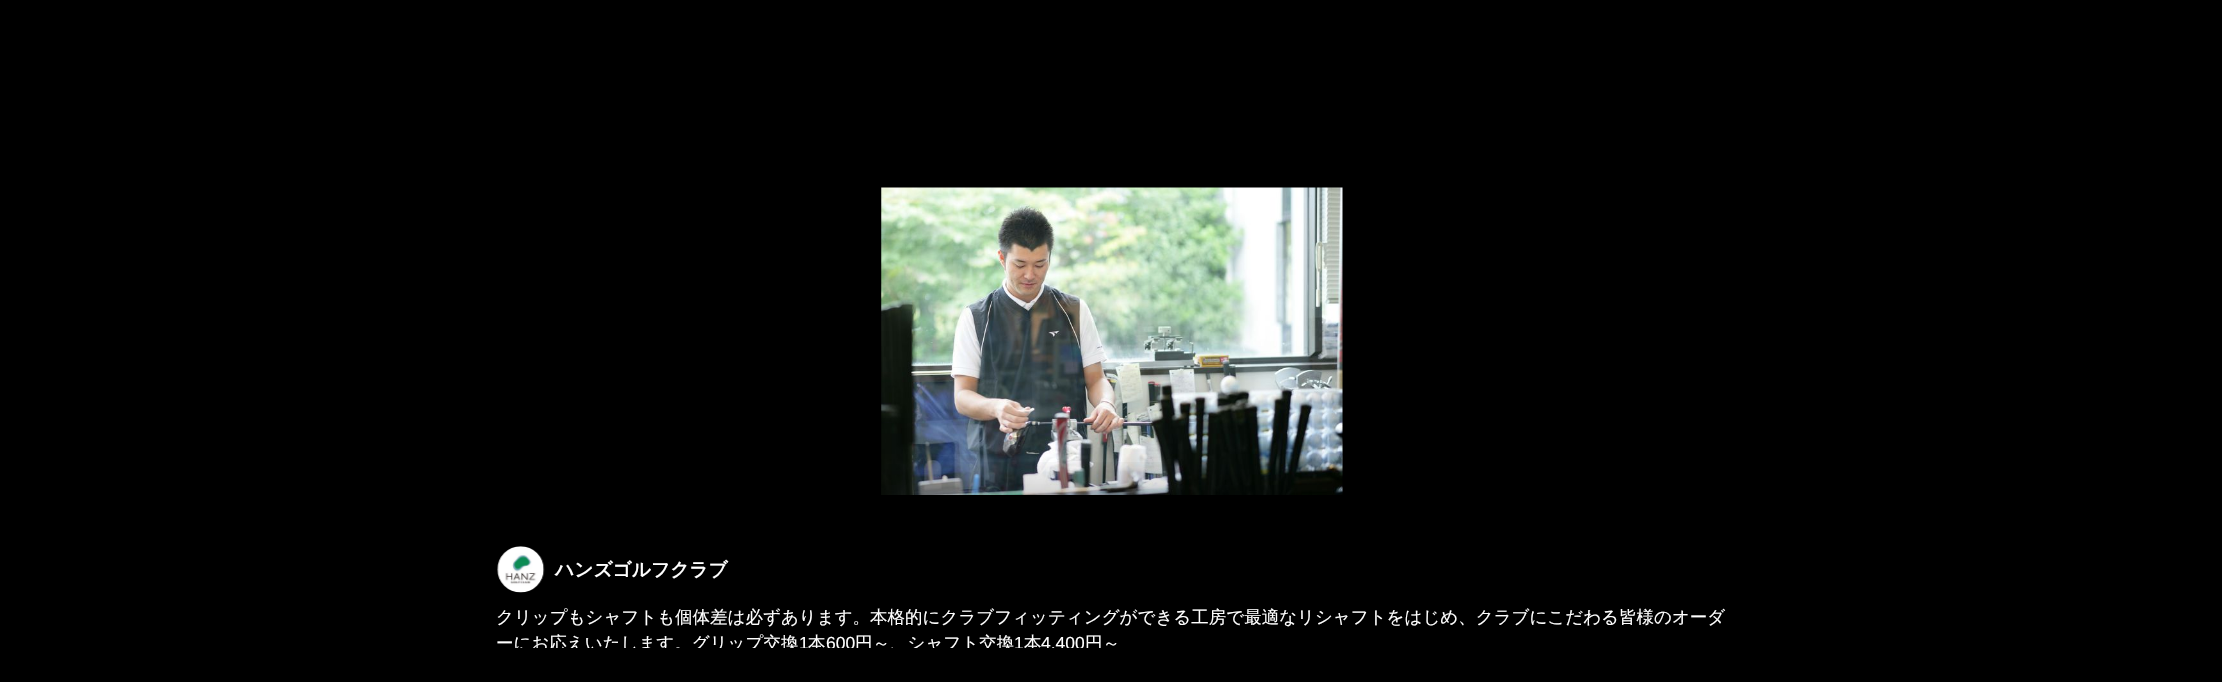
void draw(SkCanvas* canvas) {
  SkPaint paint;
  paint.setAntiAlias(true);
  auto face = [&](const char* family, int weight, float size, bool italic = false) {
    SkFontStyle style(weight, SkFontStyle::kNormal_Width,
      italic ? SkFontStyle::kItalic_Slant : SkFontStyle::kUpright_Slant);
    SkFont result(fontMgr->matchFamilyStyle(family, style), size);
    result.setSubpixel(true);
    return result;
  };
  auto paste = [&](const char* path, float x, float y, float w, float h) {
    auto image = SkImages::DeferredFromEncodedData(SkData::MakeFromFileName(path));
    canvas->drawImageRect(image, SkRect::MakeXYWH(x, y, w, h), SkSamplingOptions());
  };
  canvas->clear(0xff000000);
  paste("img/1.png", 881, 187, 462, 308);
  {
    const SkColor colors[] = {0x00000000, 0x66000000, 0x66000000};
    const float stops[] = {0, 0.37f, 1};
    const SkPoint ends[] = {{1111, 457}, {1111, 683}};
    paint.setShader(SkGradientShader::MakeLinear(ends, colors, stops, 3, SkTileMode::kClamp));
    paint.setAlpha(255);
  }
  canvas->drawRect(SkRect::MakeXYWH(882, 462, 461, 33), paint);
  paste("img/2.png", 497, 546, 48, 47);
  auto f0 = face("WenQuanYi Zen Hei", 700, 18.75f);
  paint.setShader(nullptr);
  paint.setColor(0xffffffff);
  canvas->drawString("ハンズゴルフクラブ", 555, 576, f0, paint);
  auto f1 = face("WenQuanYi Zen Hei", 500, 17.5f);
  canvas->drawString("クリップもシャフトも個体差は必ずあります。本格的にクラブフィッティングができる工房で最適なリシャフトをはじめ、クラブにこだわる皆様のオーダ", 496, 623, f1, paint);
  canvas->save();
  canvas->clipRect(SkRect::MakeXYWH(486, 545, 1250, 103));
  canvas->drawString("ーにお応えいたします。グリップ交換", 496, 649, f1, paint);
  auto f2 = face("Liberation Sans", 400, 17.5f);
  canvas->drawString("1", 799, 649, f2, paint);
  canvas->drawString("本", 808, 649, f1, paint);
  canvas->drawString("600", 826, 649, f2, paint);
  canvas->drawString("円～、シャフト交換", 855, 649, f1, paint);
  canvas->drawString("1", 1014, 649, f2, paint);
  canvas->drawString("本", 1024, 649, f1, paint);
  canvas->drawString("4,400", 1041, 649, f2, paint);
  canvas->drawString("円～", 1085, 649, f1, paint);
  canvas->restore();
}
